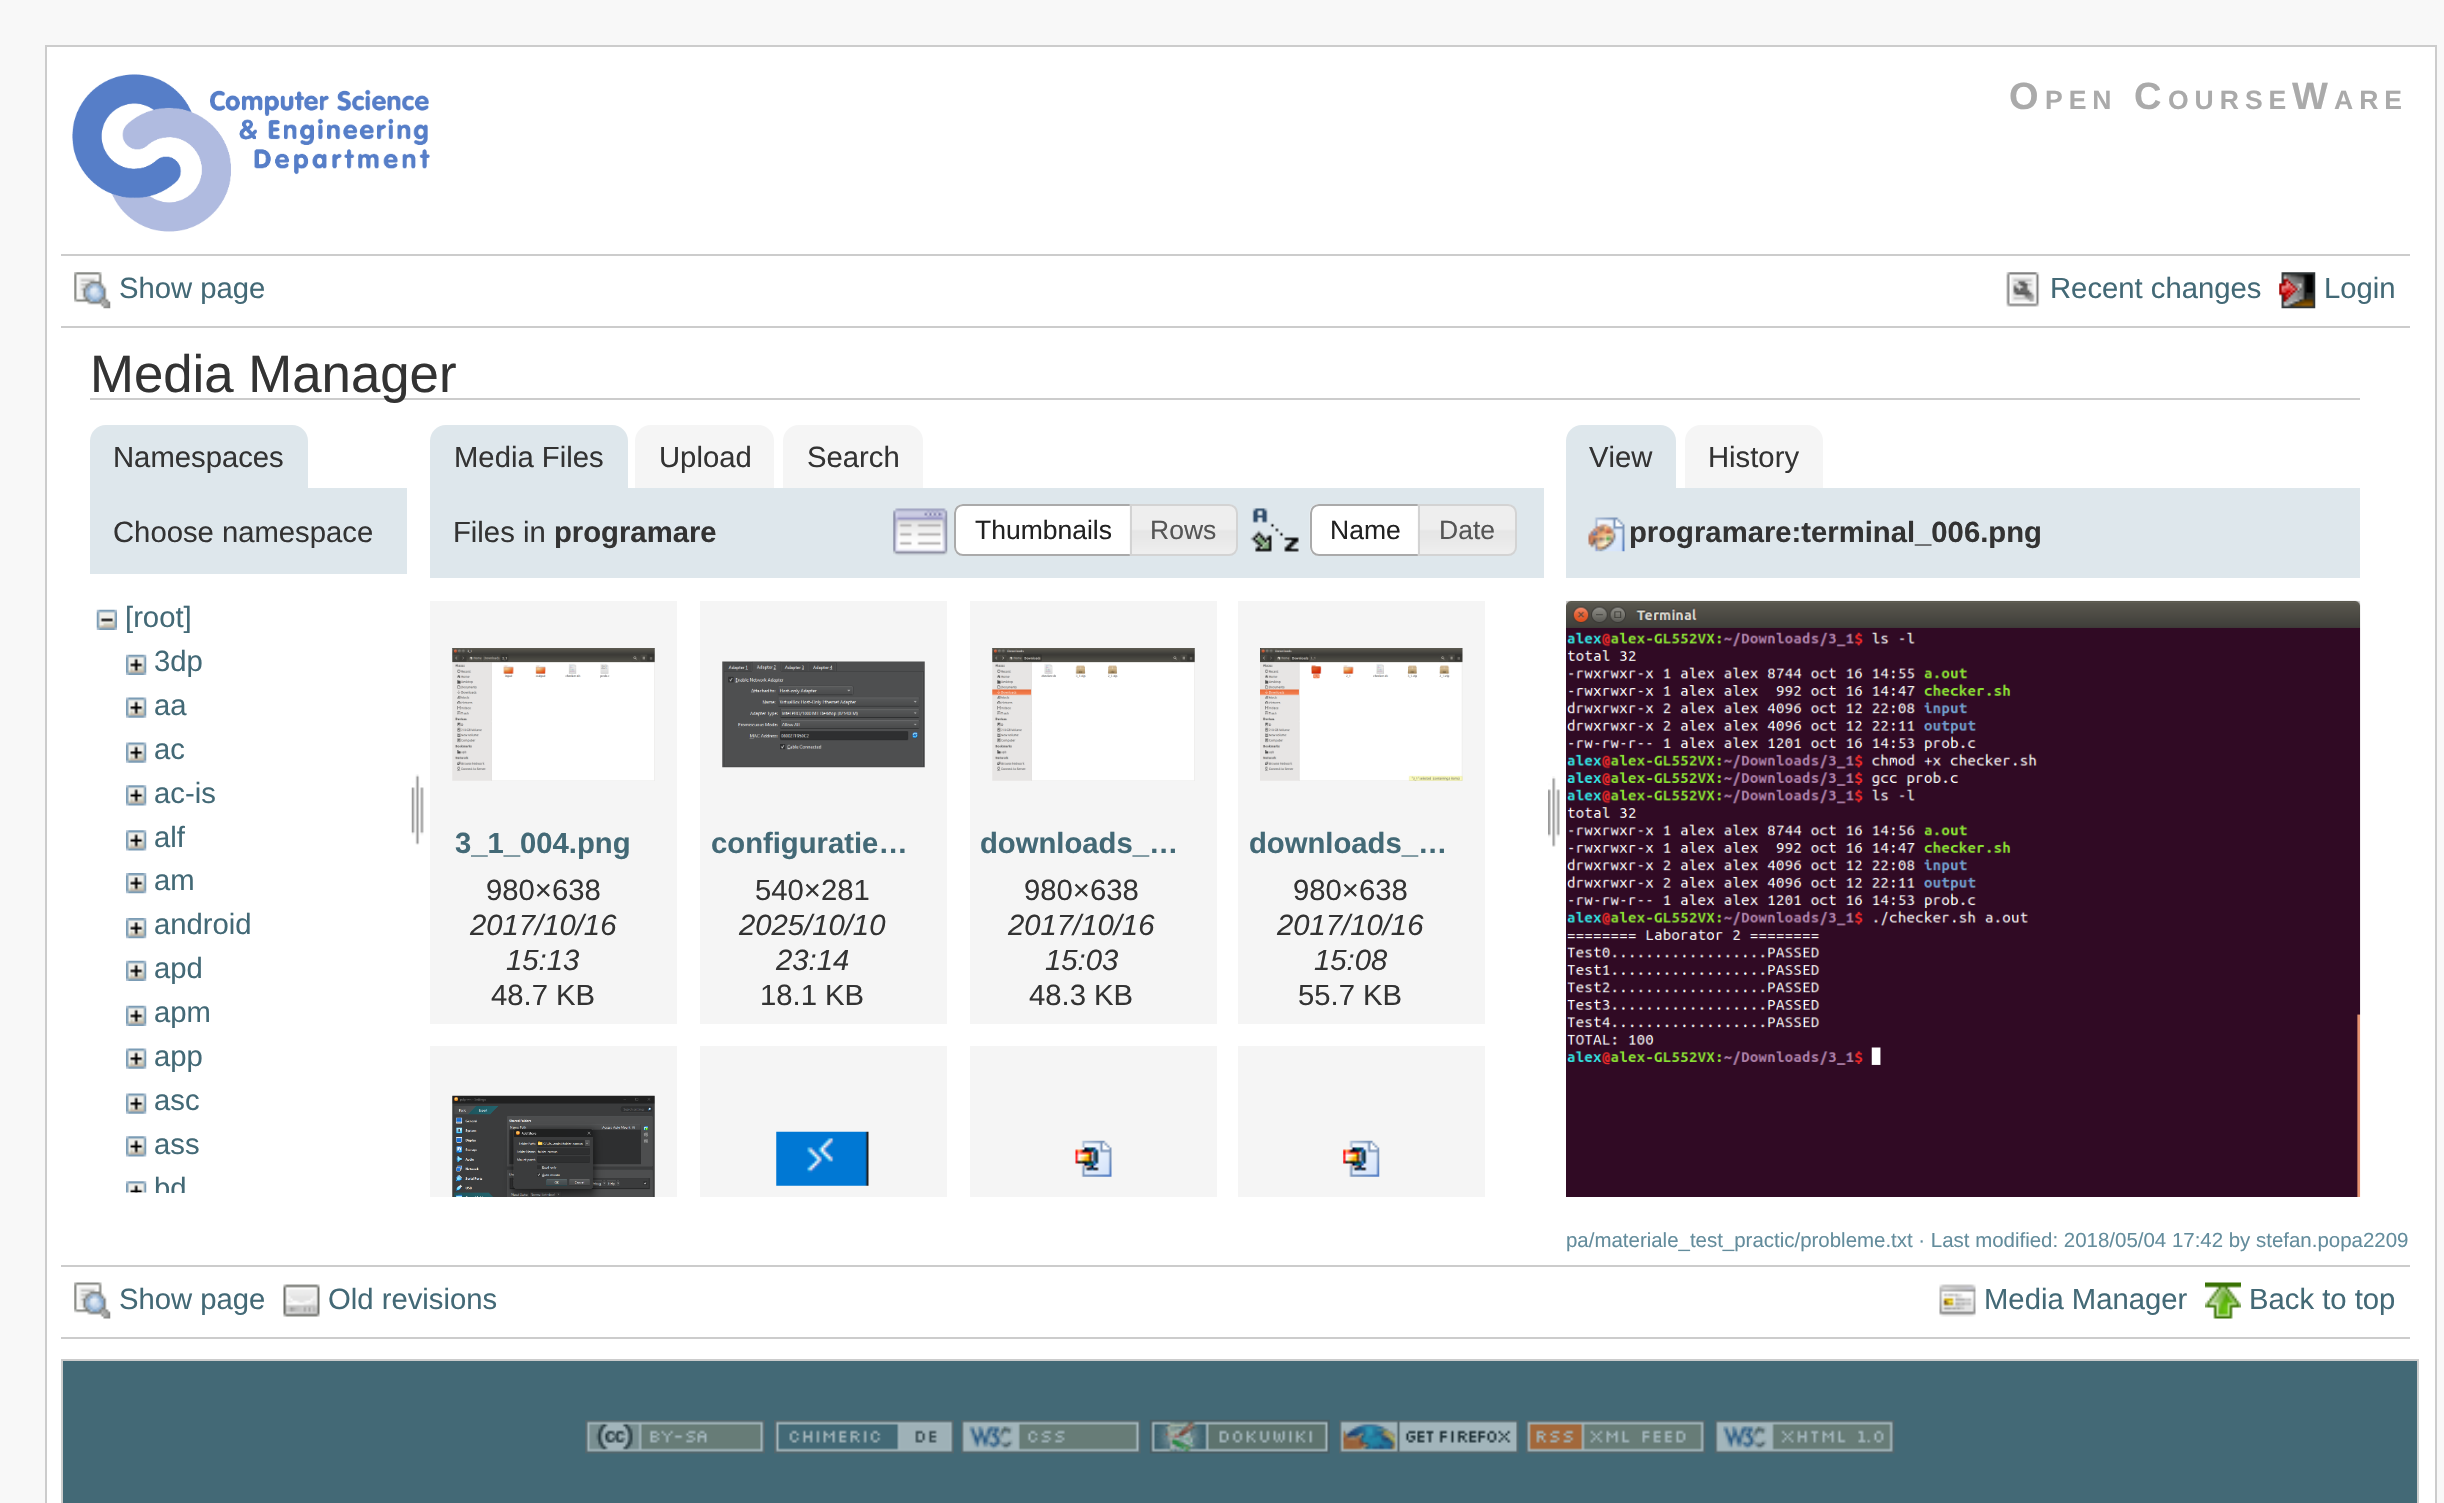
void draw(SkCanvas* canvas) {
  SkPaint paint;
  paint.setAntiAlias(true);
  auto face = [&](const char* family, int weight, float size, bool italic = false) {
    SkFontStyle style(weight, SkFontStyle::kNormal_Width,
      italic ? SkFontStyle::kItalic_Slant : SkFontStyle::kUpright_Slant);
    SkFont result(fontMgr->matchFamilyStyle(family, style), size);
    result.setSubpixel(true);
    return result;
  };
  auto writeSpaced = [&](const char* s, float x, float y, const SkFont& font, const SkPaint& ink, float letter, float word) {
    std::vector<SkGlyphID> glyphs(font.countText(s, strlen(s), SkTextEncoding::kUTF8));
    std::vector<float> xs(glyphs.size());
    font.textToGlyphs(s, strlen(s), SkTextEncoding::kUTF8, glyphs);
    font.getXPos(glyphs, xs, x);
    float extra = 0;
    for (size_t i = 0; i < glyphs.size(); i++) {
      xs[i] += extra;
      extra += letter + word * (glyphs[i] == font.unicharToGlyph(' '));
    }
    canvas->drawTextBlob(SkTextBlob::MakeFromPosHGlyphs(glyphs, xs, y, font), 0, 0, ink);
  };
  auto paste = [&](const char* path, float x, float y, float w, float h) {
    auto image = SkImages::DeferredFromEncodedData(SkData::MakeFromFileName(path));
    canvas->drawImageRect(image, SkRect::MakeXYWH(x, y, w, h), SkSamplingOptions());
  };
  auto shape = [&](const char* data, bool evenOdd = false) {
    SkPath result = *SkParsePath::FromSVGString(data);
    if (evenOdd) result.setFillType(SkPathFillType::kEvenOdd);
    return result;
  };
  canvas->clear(0xfff8f8f8);
  paint.setColor(0xffffffff);
  canvas->drawRect(SkRect::MakeXYWH(46, 46, 2390, 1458), paint);
  paint.setStroke(true);
  paint.setStrokeWidth(2);
  paint.setColor(0xffcccccc);
  canvas->drawRect(SkRect::MakeXYWH(46, 46, 2390, 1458), paint);
  paste("img/1.png", 72, 74, 358, 158);
  paint.setStroke(false);
  canvas->drawRect(SkRect::MakeXYWH(61, 254, 2349, 2), paint);
  canvas->drawRect(SkRect::MakeXYWH(61, 326, 2349, 2), paint);
  paste("img/2.png", 74, 272, 37, 37);
  paste("img/3.png", 2006, 272, 34, 35);
  paste("img/4.png", 2279, 272, 37, 37);
  canvas->drawRect(SkRect::MakeXYWH(90, 398, 2270, 2), paint);
  paint.setColor(0xffdee7ec);
  canvas->drawPath(shape("M106 425H292C301 425 308 432 308 441V488H90V441C90 432 97 425 106 425Z"), paint);
  canvas->drawRect(SkRect::MakeXYWH(90, 488, 317, 86), paint);
  paste("img/5.png", 96, 609, 21, 21);
  paste("img/6.png", 126, 654, 21, 21);
  paste("img/7.png", 126, 697, 21, 21);
  paste("img/7.png", 126, 742, 21, 21);
  paste("img/8.png", 126, 785, 21, 21);
  paste("img/9.png", 126, 830, 21, 21);
  paste("img/10.png", 126, 873, 21, 21);
  paste("img/10.png", 126, 918, 21, 21);
  paste("img/6.png", 126, 960, 21, 21);
  paste("img/6.png", 126, 1005, 21, 21);
  paste("img/7.png", 126, 1048, 21, 21);
  paste("img/7.png", 126, 1093, 21, 21);
  paste("img/8.png", 126, 1136, 21, 21);
  paste("img/11.png", 126, 1181, 21, 12);
  paste("img/12.png", 411, 774, 13, 71);
  canvas->drawPath(shape("M446 425H612C621 425 628 432 628 441V488H430V441C430 432 437 425 446 425Z"), paint);
  paint.setColor(0xfff5f5f5);
  canvas->drawPath(shape("M651 425H758C767 425 774 432 774 441V488H635V441C635 432 642 425 651 425Z"), paint);
  canvas->drawPath(shape("M799 425H907C916 425 923 432 923 441V488H783V441C783 432 790 425 799 425Z"), paint);
  paint.setColor(0xffdee7ec);
  canvas->drawRect(SkRect::MakeXYWH(430, 488, 1114, 90), paint);
  paste("img/13.png", 893, 508, 55, 48);
  paint.setColor(0xffffffff);
  canvas->drawPath(shape("M963 504H1132V556H963C958 556 954 552 954 547V513C954 508 958 504 963 504Z"), paint);
  paste("img/14.png", 954, 504, 7, 46);
  paint.setStroke(true);
  paint.setColor(0xffaaaaaa);
  canvas->drawPath(shape("M963 505H1131V555H963C958.5 555 955 551.5 955 547V513C955 508.5 958.5 505 963 505Z"), paint);
  paste("img/15.png", 1129, 504, 108, 52);
  paint.setColor(0xffd3d3d3);
  canvas->drawPath(shape("M1131 505H1229C1233.5 505 1237 508.5 1237 513V547C1237 551.5 1233.5 555 1229 555H1131Z"), paint);
  paste("img/16.png", 1250, 508, 49, 44);
  paint.setStroke(false);
  paint.setColor(0xffffffff);
  canvas->drawPath(shape("M1319 504H1420V556H1319C1314 556 1310 552 1310 547V513C1310 508 1314 504 1319 504Z"), paint);
  paste("img/17.png", 1309, 504, 8, 51);
  paint.setStroke(true);
  paint.setColor(0xffaaaaaa);
  canvas->drawPath(shape("M1319 505H1419V555H1319C1314.5 555 1311 551.5 1311 547V513C1311 508.5 1314.5 505 1319 505Z"), paint);
  paste("img/18.png", 1417, 504, 99, 52);
  paint.setColor(0xffd3d3d3);
  canvas->drawPath(shape("M1419 505H1508C1512.5 505 1516 508.5 1516 513V547C1516 551.5 1512.5 555 1508 555H1419Z"), paint);
  paste("img/19.png", 1548, 776, 12, 71);
  paint.setStroke(false);
  paint.setColor(0xfff5f5f5);
  canvas->drawRect(SkRect::MakeXYWH(430, 601, 247, 423), paint);
  paste("img/20.png", 452, 648, 203, 133);
  canvas->drawRect(SkRect::MakeXYWH(700, 601, 247, 423), paint);
  paste("img/21.png", 722, 661, 203, 107);
  canvas->drawRect(SkRect::MakeXYWH(970, 601, 247, 423), paint);
  paste("img/22.png", 992, 648, 203, 133);
  canvas->drawRect(SkRect::MakeXYWH(1238, 601, 247, 423), paint);
  paste("img/23.png", 1260, 648, 203, 133);
  canvas->drawRect(SkRect::MakeXYWH(430, 1046, 247, 151), paint);
  paste("img/24.png", 452, 1095, 203, 102);
  canvas->drawRect(SkRect::MakeXYWH(700, 1046, 247, 151), paint);
  paste("img/25.png", 776, 1131, 93, 55);
  canvas->drawRect(SkRect::MakeXYWH(970, 1046, 247, 151), paint);
  paste("img/26.png", 1075, 1140, 37, 37);
  canvas->drawRect(SkRect::MakeXYWH(1238, 1046, 247, 151), paint);
  paste("img/27.png", 1343, 1140, 37, 37);
  paint.setColor(0xffdee7ec);
  canvas->drawPath(shape("M1582 425H1660C1669 425 1676 432 1676 441V488H1566V441C1566 432 1573 425 1582 425Z"), paint);
  paint.setColor(0xfff5f5f5);
  canvas->drawPath(shape("M1701 425H1807C1816 425 1823 432 1823 441V488H1685V441C1685 432 1692 425 1701 425Z"), paint);
  paint.setColor(0xffdee7ec);
  canvas->drawRect(SkRect::MakeXYWH(1566, 488, 794, 90), paint);
  paste("img/28.png", 1588, 517, 37, 35);
  paste("img/29.png", 1566, 600, 795, 597);
  paint.setColor(0xffcccccc);
  canvas->drawRect(SkRect::MakeXYWH(61, 1265, 2349, 2), paint);
  canvas->drawRect(SkRect::MakeXYWH(61, 1337, 2349, 2), paint);
  paste("img/30.png", 74, 1282, 37, 37);
  paste("img/31.png", 283, 1284, 37, 33);
  paste("img/32.png", 1939, 1284, 37, 33);
  paste("img/33.png", 2205, 1282, 36, 37);
  paint.setColor(0xff436976);
  canvas->drawRect(SkRect::MakeXYWH(62, 1360, 2356, 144), paint);
  paint.setStroke(true);
  paint.setColor(0xffcccccc);
  canvas->drawRect(SkRect::MakeXYWH(62, 1360, 2356, 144), paint);
  paste("img/34.png", 585, 1420, 180, 34);
  paste("img/35.png", 774, 1420, 180, 34);
  paste("img/36.png", 961, 1420, 180, 34);
  paste("img/37.png", 1149, 1419, 181, 35);
  paste("img/38.png", 1339, 1420, 180, 34);
  paste("img/39.png", 1525, 1420, 181, 34);
  paste("img/40.png", 1714, 1420, 181, 34);
  auto f0 = face("Liberation Sans", 700, 38);
  paint.setStroke(false);
  paint.setColor(0xffaaaaaa);
  writeSpaced("O", 2009, 109, f0, paint, 6, 0);
  auto f1 = face("Liberation Sans", 700, 26.5f);
  writeSpaced("PEN", 2045, 109, f1, paint, 6, 0);
  writeSpaced("C", 2134, 109, f0, paint, 6, 0);
  writeSpaced("OURSE", 2168, 109, f1, paint, 6, 0);
  writeSpaced("W", 2292, 109, f0, paint, 6, 0);
  writeSpaced("ARE", 2334, 109, f1, paint, 6, 0);
  auto f2 = face("Liberation Sans", 400, 29.25f);
  paint.setColor(0xff436976);
  {
    const struct { const char* s; float x, y; } items[] = {
      {"Show page", 119, 298},
      {"Recent changes", 2050, 298},
      {"Login", 2324, 298},
    };
    for (auto [s, x, y] : items) {
      canvas->drawString(s, x, y, f2, paint);
    }
  }
  auto f3 = face("Liberation Sans", 400, 52.75f);
  paint.setColor(0xff333333);
  canvas->drawString("Media Manager", 90, 392, f3, paint);
  canvas->drawString("Namespaces", 113, 467, f2, paint);
  canvas->drawString("Choose namespace", 113, 542, f2, paint);
  paint.setColor(0xff436976);
  {
    const struct { const char* s; float x, y; } items[] = {
      {"[root]", 125, 627},
      {"3dp", 154, 671},
      {"aa", 154, 715},
      {"ac", 154, 759},
      {"ac-is", 154, 803},
      {"alf", 154, 847},
      {"am", 154, 890},
      {"android", 154, 934},
      {"apd", 154, 978},
      {"apm", 154, 1022},
      {"app", 154, 1066},
      {"asc", 154, 1110},
      {"ass", 154, 1154},
    };
    for (auto [s, x, y] : items) {
      canvas->drawString(s, x, y, f2, paint);
    }
  }
  canvas->save();
  canvas->clipRect(SkRect::MakeXYWH(90, 596, 317, 597));
  canvas->drawString("bd", 154, 1198, f2, paint);
  canvas->restore();
  paint.setColor(0xff333333);
  {
    const struct { const char* s; float x, y; } items[] = {
      {"Media Files", 454, 467},
      {"Upload", 659, 467},
      {"Search", 807, 467},
      {"Files in", 453, 542},
    };
    for (auto [s, x, y] : items) {
      canvas->drawString(s, x, y, f2, paint);
    }
  }
  auto f4 = face("Liberation Sans", 700, 29.25f);
  canvas->drawString("programare", 554, 542, f4, paint);
  auto f5 = face("Liberation Sans", 400, 26.5f);
  paint.setColor(0xff212121);
  canvas->drawString("Thumbnails", 975, 539, f5, paint);
  paint.setColor(0xff555555);
  canvas->drawString("Rows", 1150, 539, f5, paint);
  paint.setColor(0xff212121);
  canvas->drawString("Name", 1330, 539, f5, paint);
  paint.setColor(0xff555555);
  canvas->drawString("Date", 1439, 539, f5, paint);
  paint.setColor(0xff436976);
  canvas->drawString("3_1_004.png", 455, 853, f4, paint);
  paint.setColor(0xff333333);
  canvas->drawString("980×638", 486, 900, f2, paint);
  auto f6 = face("Liberation Sans", 400, 29.25f, true);
  canvas->drawString("2017/10/16", 470, 935, f6, paint);
  canvas->drawString("15:13", 506, 970, f6, paint);
  canvas->drawString("48.7 KB", 491, 1005, f2, paint);
  paint.setColor(0xff436976);
  canvas->drawString("configuratie…", 711, 853, f4, paint);
  paint.setColor(0xff333333);
  canvas->drawString("540×281", 755, 900, f2, paint);
  canvas->drawString("2025/10/10", 739, 935, f6, paint);
  canvas->drawString("23:14", 776, 970, f6, paint);
  canvas->drawString("18.1 KB", 760, 1005, f2, paint);
  paint.setColor(0xff436976);
  canvas->drawString("downloads_…", 980, 853, f4, paint);
  paint.setColor(0xff333333);
  canvas->drawString("980×638", 1024, 900, f2, paint);
  canvas->drawString("2017/10/16", 1008, 935, f6, paint);
  canvas->drawString("15:03", 1045, 970, f6, paint);
  canvas->drawString("48.3 KB", 1029, 1005, f2, paint);
  paint.setColor(0xff436976);
  canvas->drawString("downloads_…", 1249, 853, f4, paint);
  paint.setColor(0xff333333);
  canvas->drawString("980×638", 1293, 900, f2, paint);
  canvas->drawString("2017/10/16", 1277, 935, f6, paint);
  canvas->drawString("15:08", 1314, 970, f6, paint);
  {
    const struct { const char* s; float x, y; } items[] = {
      {"55.7 KB", 1298, 1005},
      {"View", 1589, 467},
      {"History", 1708, 467},
    };
    for (auto [s, x, y] : items) {
      canvas->drawString(s, x, y, f2, paint);
    }
  }
  canvas->drawString("programare:terminal_006.png", 1629, 542, f4, paint);
  auto f7 = face("Liberation Sans", 400, 20.45f);
  paint.setColor(0xff638c9c);
  canvas->drawString("pa/materiale_test_practic/probleme.txt · Last modified: 2018/05/04 17:42 by stefan.popa2209", 1566, 1247, f7, paint);
  paint.setColor(0xff436976);
  {
    const struct { const char* s; float x, y; } items[] = {
      {"Show page", 119, 1309},
      {"Old revisions", 328, 1309},
      {"Media Manager", 1984, 1309},
      {"Back to top", 2249, 1309},
    };
    for (auto [s, x, y] : items) {
      canvas->drawString(s, x, y, f2, paint);
    }
  }
}
